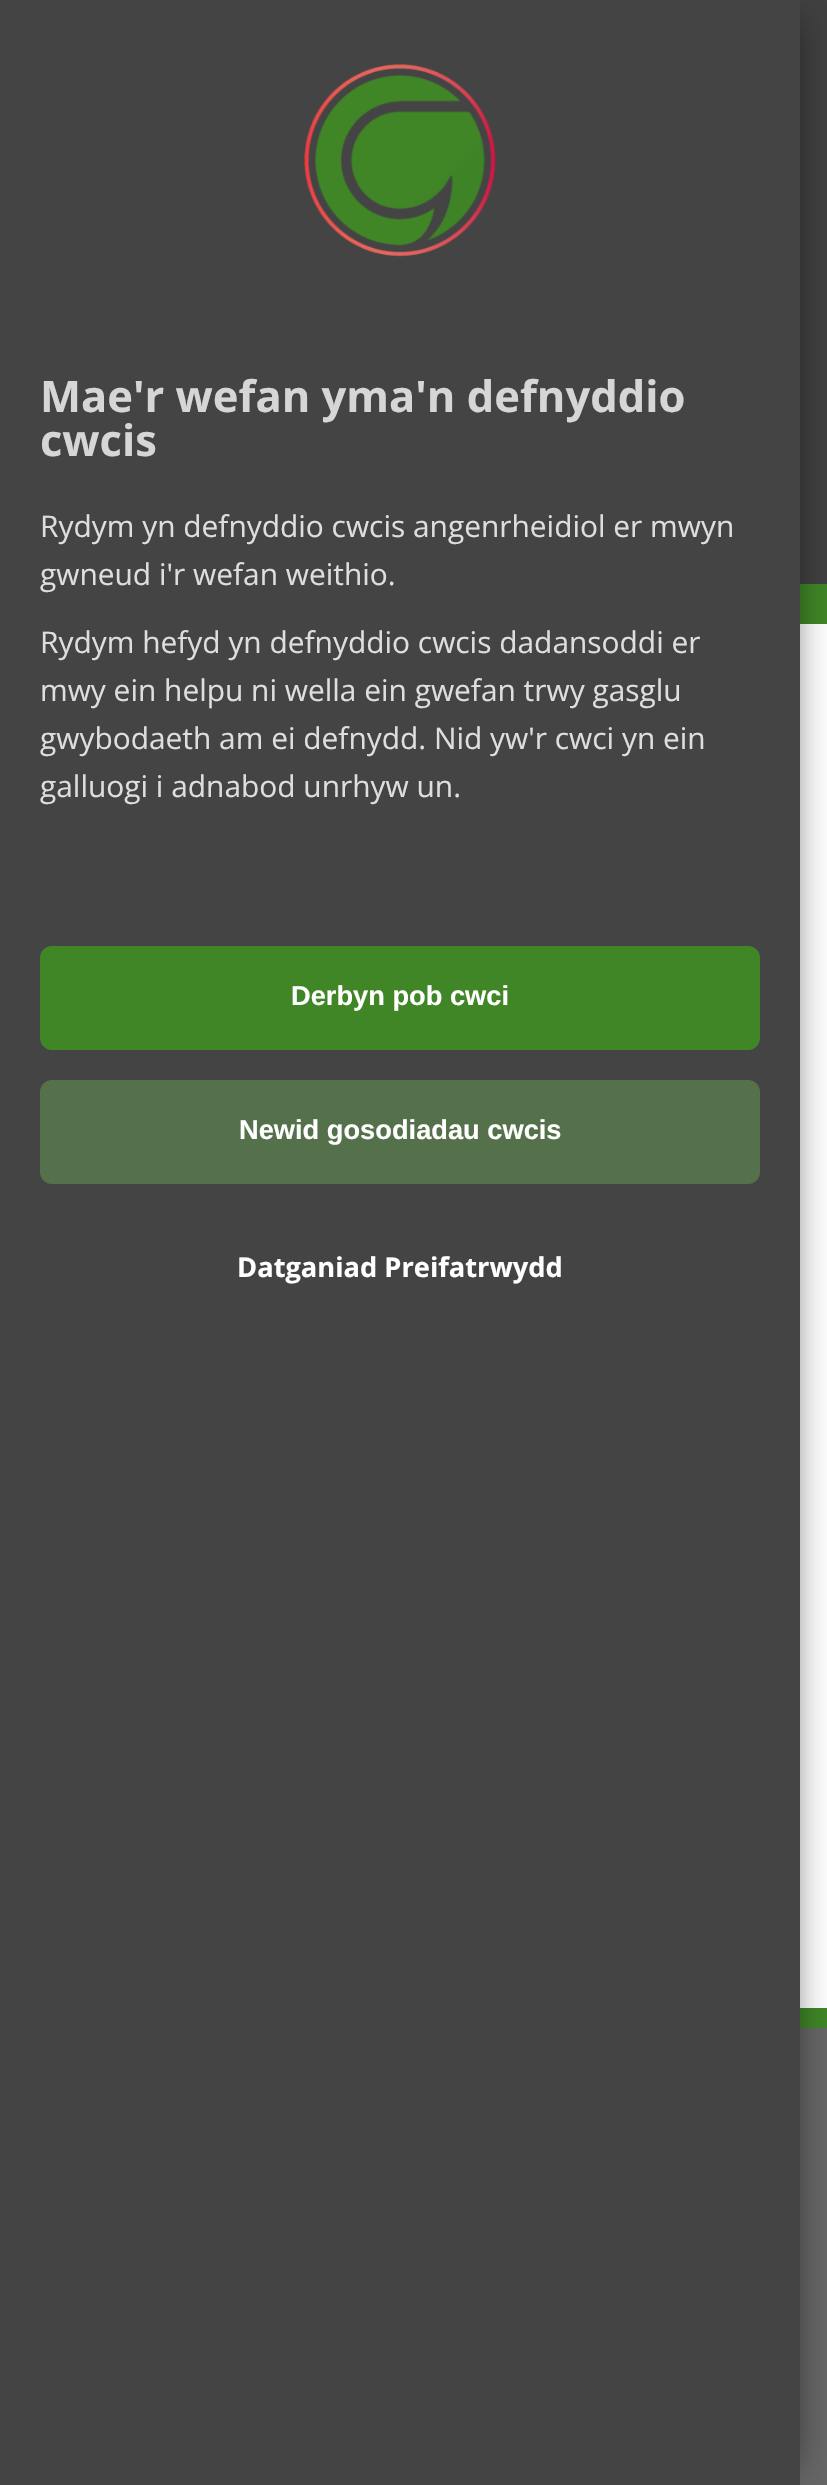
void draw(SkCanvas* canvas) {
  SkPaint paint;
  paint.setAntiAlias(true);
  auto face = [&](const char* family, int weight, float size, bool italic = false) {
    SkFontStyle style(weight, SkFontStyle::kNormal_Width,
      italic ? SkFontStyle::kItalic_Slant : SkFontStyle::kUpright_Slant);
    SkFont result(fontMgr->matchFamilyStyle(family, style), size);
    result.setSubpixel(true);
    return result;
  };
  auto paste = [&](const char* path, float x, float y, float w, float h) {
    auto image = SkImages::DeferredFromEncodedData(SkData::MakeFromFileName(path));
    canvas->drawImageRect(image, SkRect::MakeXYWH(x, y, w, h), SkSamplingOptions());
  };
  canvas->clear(0xffffffff);
  {
    const struct { float x, y, w, h; SkColor color; } items[] = {
      {800, 0, 27, 584, 0xff404040},
      {800, 584, 27, 40, 0xff408627},
      {800, 2028, 27, 457, 0xff666666},
      {800, 2008, 27, 20, 0xff408627},
    };
    for (auto [x, y, w, h, color] : items) {
      paint.setColor(color);
      canvas->drawRect(SkRect::MakeXYWH(x, y, w, h), paint);
    }
  }
  paint.setColor(0x9c000000);
  paint.setMaskFilter(SkMaskFilter::MakeBlur(kNormal_SkBlurStyle, 18));
  canvas->drawRect(SkRect::MakeXYWH(32, 20, 760, 2446), paint);
  paint.setMaskFilter(nullptr);
  paint.setColor(0xff444444);
  canvas->drawRect(SkRect::MakeXYWH(0, 0, 800, 2485), paint);
  paste("img/1.png", 304, 64, 192, 193);
  paint.setColor(0xff408627);
  canvas->drawRoundRect(SkRect::MakeXYWH(40, 946, 720, 104), 12, 12, paint);
  paint.setColor(0xff55714b);
  canvas->drawRoundRect(SkRect::MakeXYWH(40, 1080, 720, 104), 12, 12, paint);
  auto f0 = face("Open Sans", 700, 43.5f);
  paint.setColor(0xffd6d6d6);
  canvas->drawString("Mae'r wefan yma'n defnyddio", 40, 412, f0, paint);
  canvas->drawString("cwcis", 40, 456, f0, paint);
  auto f1 = face("Open Sans", 400, 29.9f);
  paint.setColor(0xffdedede);
  {
    const struct { const char* s; float x, y; } items[] = {
      {"Rydym yn defnyddio cwcis angenrheidiol er mwyn", 40, 537},
      {"gwneud i'r wefan weithio.", 40, 585},
      {"Rydym hefyd yn defnyddio cwcis dadansoddi er", 40, 653},
      {"mwy ein helpu ni wella ein gwefan trwy gasglu", 40, 701},
      {"gwybodaeth am ei defnydd. Nid yw'r cwci yn ein", 40, 749},
      {"galluogi i adnabod unrhyw un.", 40, 797},
    };
    for (auto [s, x, y] : items) {
      canvas->drawString(s, x, y, f1, paint);
    }
  }
  auto f2 = face("Liberation Sans", 700, 27.25f);
  paint.setColor(0xffffffff);
  canvas->drawString("Derbyn pob cwci", 291, 1005, f2, paint);
  canvas->drawString("Newid gosodiadau cwcis", 239, 1139, f2, paint);
  auto f3 = face("Open Sans", 700, 27.25f);
  canvas->drawString("Datganiad Preifatrwydd", 237, 1277, f3, paint);
}
